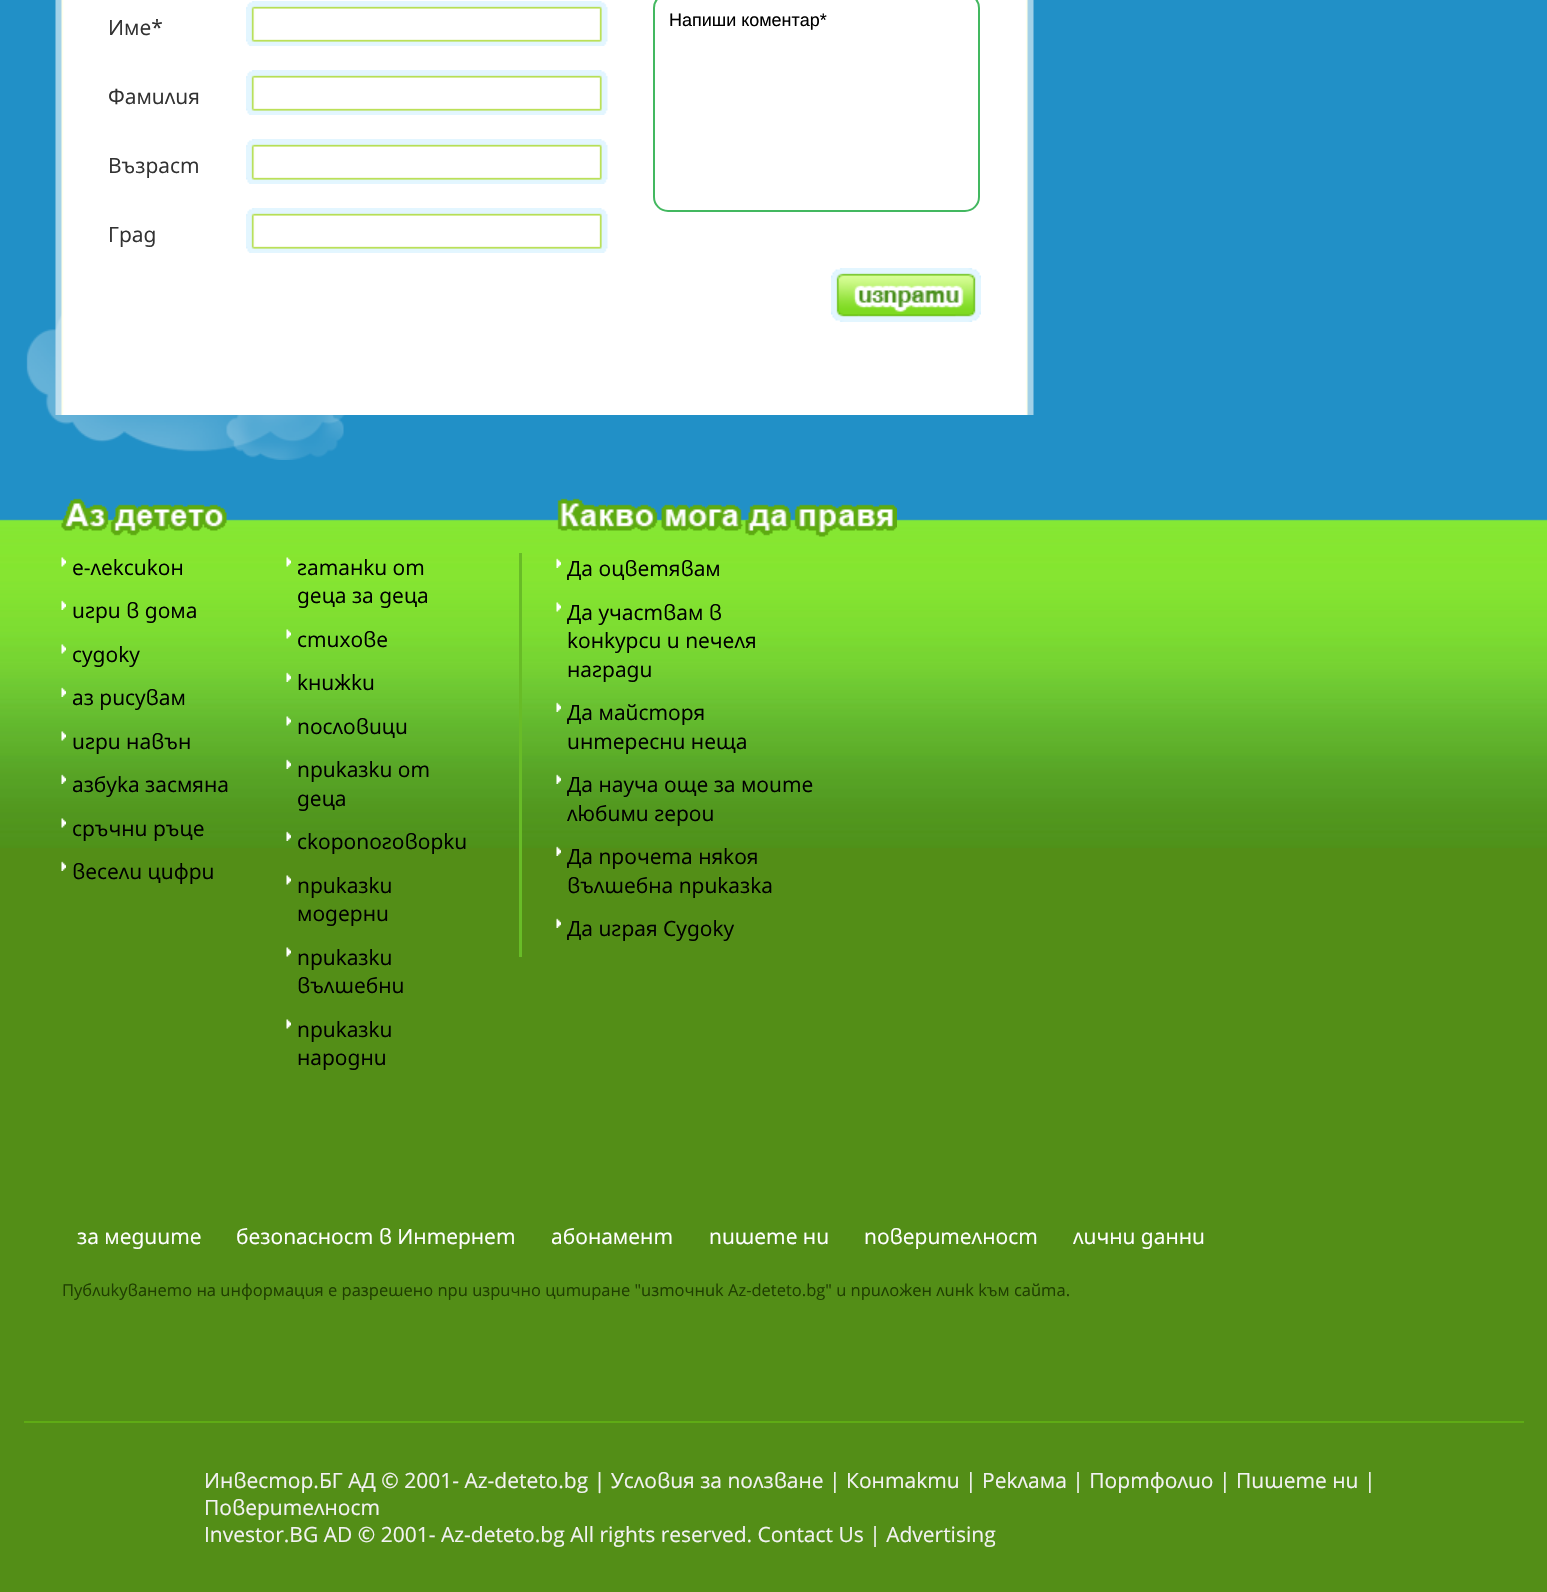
void draw(SkCanvas* canvas) {
  SkPaint paint;
  paint.setAntiAlias(true);
  auto face = [&](const char* family, int weight, float size, bool italic = false) {
    SkFontStyle style(weight, SkFontStyle::kNormal_Width,
      italic ? SkFontStyle::kItalic_Slant : SkFontStyle::kUpright_Slant);
    SkFont result(fontMgr->matchFamilyStyle(family, style), size);
    result.setSubpixel(true);
    return result;
  };
  auto paste = [&](const char* path, float x, float y, float w, float h) {
    auto image = SkImages::DeferredFromEncodedData(SkData::MakeFromFileName(path));
    canvas->drawImageRect(image, SkRect::MakeXYWH(x, y, w, h), SkSamplingOptions());
  };
  canvas->clear(0xff2190c7);
  paste("img/1.png", 26, 312, 321, 148);
  paste("img/2.png", 55, 0, 979, 415);
  paste("img/3.png", 246, 1, 362, 45);
  paint.setStroke(true);
  paint.setStrokeWidth(2);
  paint.setColor(0xff43b860);
  canvas->drawRoundRect(SkRect::MakeXYWH(654, -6, 325, 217), 14, 14, paint);
  paste("img/3.png", 246, 70, 362, 45);
  paste("img/3.png", 246, 139, 362, 45);
  paste("img/3.png", 246, 208, 362, 45);
  paste("img/4.png", 831, 268, 150, 54);
  paint.setStroke(false);
  paint.setColor(0xff538e17);
  canvas->drawRect(SkRect::MakeXYWH(0, 848, 1547, 744), paint);
  paste("img/5.png", 0, 498, 1547, 350);
  paste("img/6.png", 61, 498, 166, 38);
  paste("img/7.png", 61, 557, 5, 10);
  paste("img/8.png", 61, 600, 5, 10);
  paste("img/9.png", 61, 644, 5, 10);
  paste("img/10.png", 61, 687, 5, 10);
  paste("img/11.png", 61, 731, 5, 10);
  paste("img/12.png", 61, 774, 5, 10);
  paste("img/13.png", 61, 818, 5, 10);
  paste("img/14.png", 61, 861, 5, 10);
  paste("img/15.png", 286, 557, 5, 10);
  paste("img/16.png", 286, 629, 5, 10);
  paste("img/17.png", 286, 672, 5, 10);
  paste("img/18.png", 286, 716, 5, 10);
  paste("img/19.png", 286, 759, 5, 10);
  paste("img/20.png", 286, 831, 5, 10);
  paste("img/21.png", 286, 875, 5, 10);
  paste("img/21.png", 286, 947, 5, 10);
  paste("img/21.png", 286, 1019, 5, 10);
  paste("img/22.png", 557, 498, 340, 39);
  paint.setColor(0xff68bc27);
  canvas->drawRect(SkRect::MakeXYWH(519, 553, 3, 404), paint);
  paste("img/23.png", 556, 558, 5, 10);
  paste("img/24.png", 556, 602, 5, 10);
  paste("img/25.png", 556, 702, 5, 10);
  paste("img/26.png", 556, 774, 5, 10);
  paste("img/27.png", 556, 846, 5, 10);
  paste("img/28.png", 556, 918, 5, 10);
  paint.setColor(0xff5fab15);
  canvas->drawRect(SkRect::MakeXYWH(24, 1421, 1500, 2), paint);
  auto f0 = face("Open Sans", 400, 21);
  paint.setColor(0xff323232);
  canvas->drawString("Име*", 108, 35, f0, paint);
  auto f1 = face("Liberation Sans", 400, 18);
  paint.setColor(0xff000000);
  canvas->drawString("Напиши коментар*", 669, 26, f1, paint);
  paint.setColor(0xff323232);
  {
    const struct { const char* s; float x, y; } items[] = {
      {"Фамилия", 108, 104},
      {"Възраст", 108, 173},
      {"Град", 108, 242},
    };
    for (auto [s, x, y] : items) {
      canvas->drawString(s, x, y, f0, paint);
    }
  }
  paint.setColor(0xff000000);
  {
    const struct { const char* s; float x, y; } items[] = {
      {"е-лексикон", 72, 575},
      {"игри в дома", 72, 618},
      {"судоку", 72, 662},
      {"аз рисувам", 72, 705},
      {"игри навън", 72, 749},
      {"азбука засмяна", 72, 792},
      {"сръчни ръце", 72, 836},
      {"весели цифри", 72, 879},
      {"гатанки от", 297, 575},
      {"деца за деца", 297, 603},
      {"стихове", 297, 647},
      {"книжки", 297, 690},
      {"пословици", 297, 734},
      {"приказки от", 297, 777},
      {"деца", 297, 806},
      {"скоропоговорки", 297, 849},
      {"приказки", 297, 893},
      {"модерни", 297, 921},
      {"приказки", 297, 965},
      {"вълшебни", 297, 993},
      {"приказки", 297, 1037},
      {"народни", 297, 1065},
      {"Да оцветявам", 567, 576},
      {"Да участвам в", 567, 620},
      {"конкурси и печеля", 567, 648},
      {"награди", 567, 677},
      {"Да майсторя", 567, 720},
      {"интересни неща", 567, 749},
      {"Да науча още за моите", 567, 792},
      {"любими герои", 567, 821},
      {"Да прочета някоя", 567, 864},
      {"вълшебна приказка", 567, 893},
      {"Да играя Судоку", 567, 936},
    };
    for (auto [s, x, y] : items) {
      canvas->drawString(s, x, y, f0, paint);
    }
  }
  paint.setColor(0xffffffff);
  {
    const struct { const char* s; float x, y; } items[] = {
      {"за медиите", 77, 1244},
      {"безопасност в Интернет", 236, 1244},
      {"абонамент", 551, 1244},
      {"пишете ни", 709, 1244},
      {"поверителност", 864, 1244},
      {"лични данни", 1073, 1244},
    };
    for (auto [s, x, y] : items) {
      canvas->drawString(s, x, y, f0, paint);
    }
  }
  auto f2 = face("Open Sans", 400, 16.5f);
  paint.setColor(0xff203f01);
  canvas->drawString("Публикуването на информация е разрешено при изрично цитиране \"източник Az-deteto.bg\" и приложен линк към сайта.", 62, 1296, f2, paint);
  paint.setColor(0xfff2f2f2);
  {
    const struct { const char* s; float x, y; } items[] = {
      {"Инвестор.БГ АД © 2001- Az-deteto.bg | Условия за ползване | Контакти | Реклама | Портфолио | Пишете ни |", 204, 1488},
      {"Поверителност", 204, 1515},
      {"Investor.BG AD © 2001- Az-deteto.bg All rights reserved. Contact Us | Advertising", 204, 1542},
    };
    for (auto [s, x, y] : items) {
      canvas->drawString(s, x, y, f0, paint);
    }
  }
}
